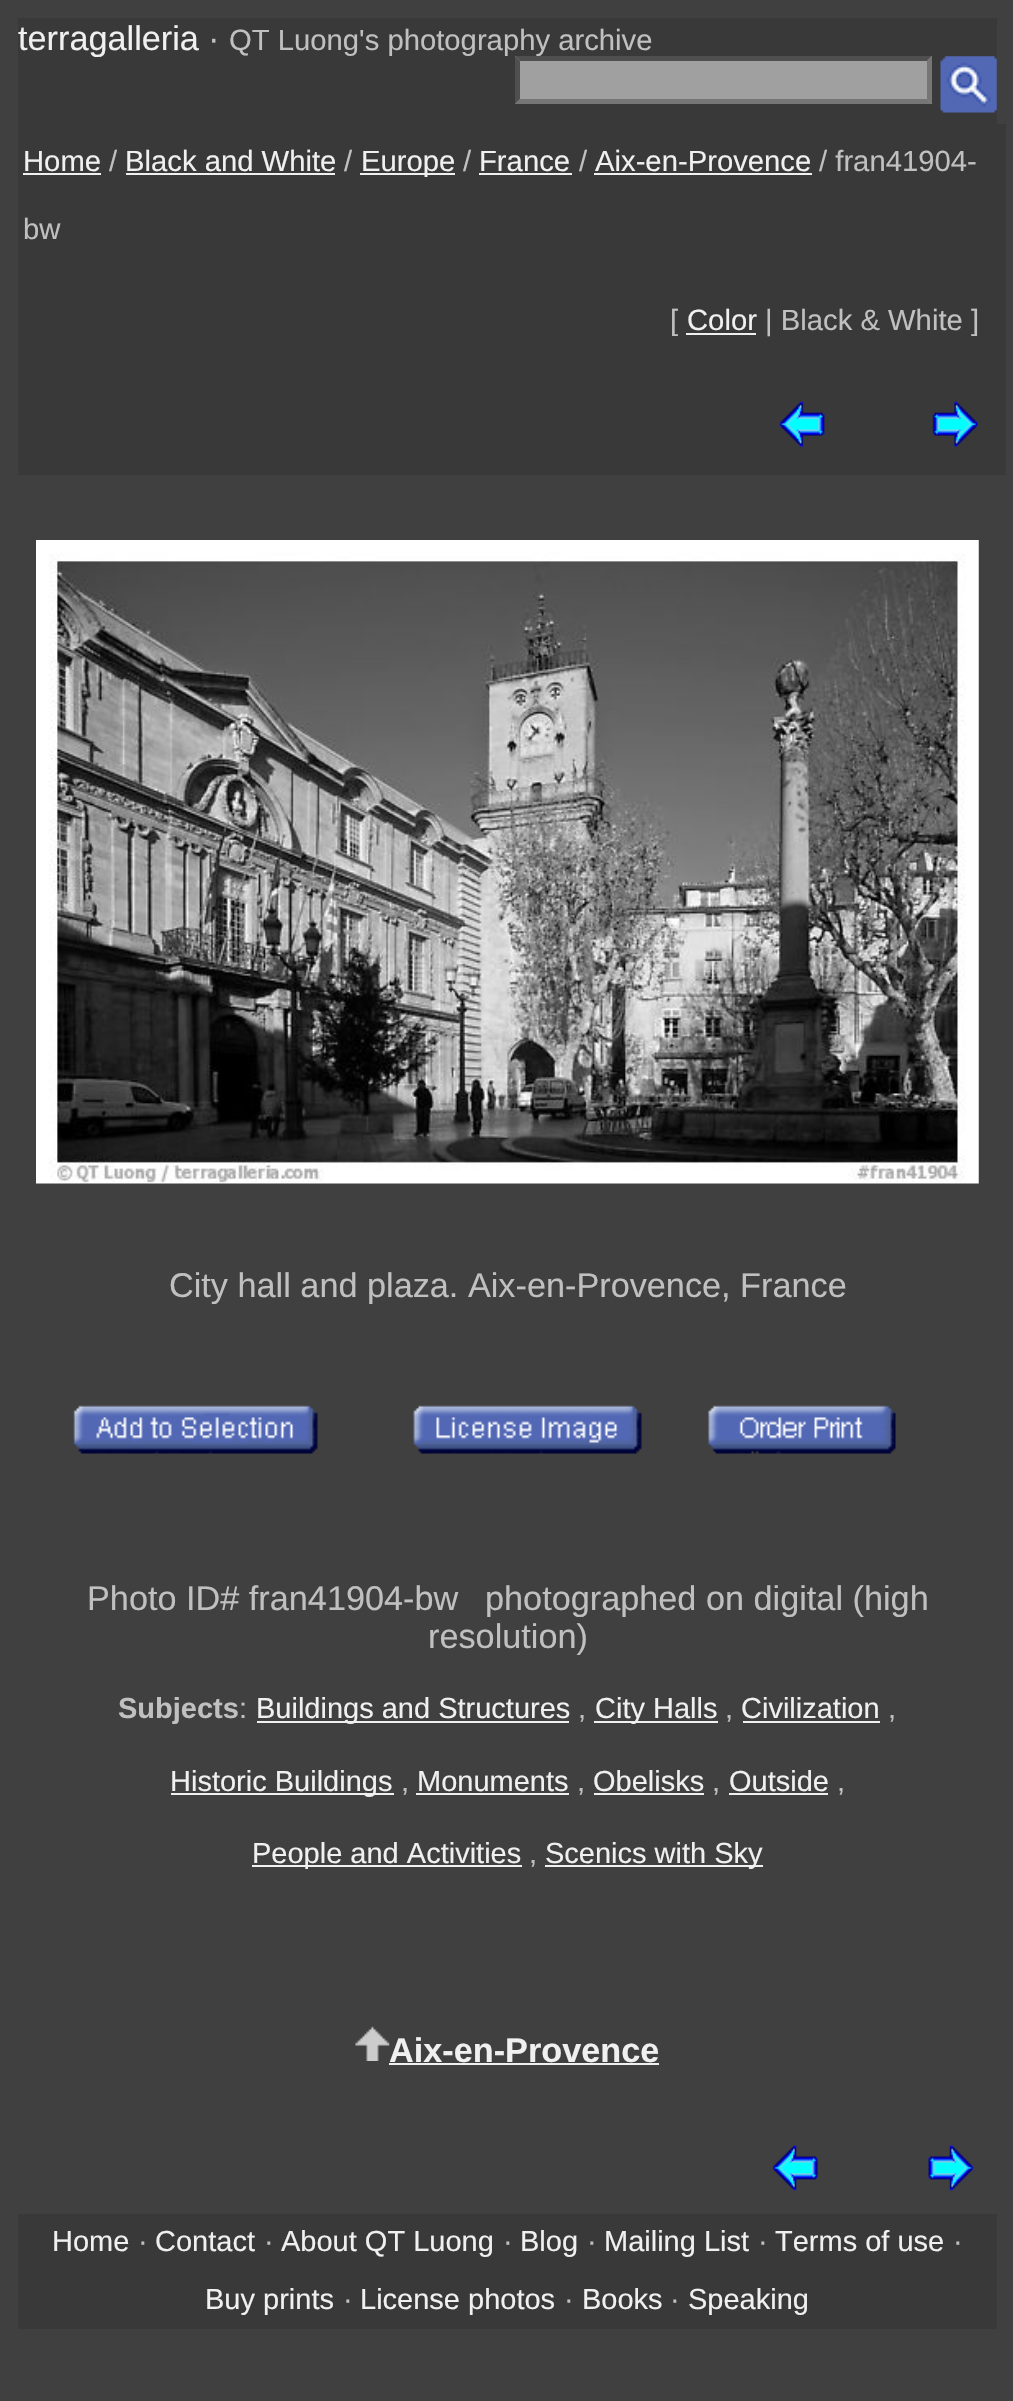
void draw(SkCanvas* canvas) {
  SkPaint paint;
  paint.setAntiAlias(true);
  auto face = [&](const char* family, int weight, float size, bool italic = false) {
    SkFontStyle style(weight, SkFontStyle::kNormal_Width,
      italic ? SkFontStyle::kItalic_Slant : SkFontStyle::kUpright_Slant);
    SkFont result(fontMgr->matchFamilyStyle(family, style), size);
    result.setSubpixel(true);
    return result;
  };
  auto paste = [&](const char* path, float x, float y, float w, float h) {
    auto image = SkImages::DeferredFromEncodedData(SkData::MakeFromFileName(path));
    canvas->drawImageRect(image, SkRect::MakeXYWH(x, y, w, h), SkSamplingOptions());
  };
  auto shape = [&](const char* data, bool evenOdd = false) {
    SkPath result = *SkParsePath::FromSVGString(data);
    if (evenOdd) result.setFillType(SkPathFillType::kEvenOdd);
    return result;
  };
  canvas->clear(0xff404040);
  paint.setColor(0xff393939);
  canvas->drawRect(SkRect::MakeXYWH(18, 18, 979, 106), paint);
  paste("img/1.png", 940, 56, 57, 57);
  {
    const struct { float x, y, w, h; SkColor color; } items[] = {
      {18, 124, 988, 351, 0xff393939},
      {23, 173, 78, 2, 0xfff0f0f0},
      {126, 173, 209, 2, 0xfff0f0f0},
      {360, 173, 95, 2, 0xfff0f0f0},
      {479, 173, 93, 2, 0xfff0f0f0},
      {594, 173, 218, 2, 0xfff0f0f0},
      {686, 333, 70, 2, 0xfff0f0f0},
    };
    for (auto [x, y, w, h, color] : items) {
      paint.setColor(color);
      canvas->drawRect(SkRect::MakeXYWH(x, y, w, h), paint);
    }
  }
  paste("img/2.png", 779, 401, 46, 46);
  paste("img/3.png", 932, 401, 46, 46);
  paste("img/4.png", 36, 540, 943, 644);
  paste("img/5.png", 73, 1405, 245, 49);
  paste("img/6.png", 413, 1405, 229, 49);
  paste("img/7.png", 708, 1405, 188, 49);
  {
    const struct { float x, y, w, h; SkColor color; } items[] = {
      {257, 1721, 312, 2, 0xfff0f0f0},
      {594, 1721, 124, 2, 0xfff0f0f0},
      {743, 1721, 137, 2, 0xfff0f0f0},
      {171, 1793, 223, 2, 0xfff0f0f0},
      {416, 1793, 153, 2, 0xfff0f0f0},
      {594, 1793, 110, 2, 0xfff0f0f0},
      {729, 1793, 99, 2, 0xfff0f0f0},
      {252, 1865, 270, 2, 0xfff0f0f0},
      {545, 1865, 218, 2, 0xfff0f0f0},
    };
    for (auto [x, y, w, h, color] : items) {
      paint.setColor(color);
      canvas->drawRect(SkRect::MakeXYWH(x, y, w, h), paint);
    }
  }
  paste("img/8.png", 355, 2026, 35, 35);
  canvas->drawRect(SkRect::MakeXYWH(389, 2063, 270, 2), paint);
  paste("img/9.png", 773, 2145, 45, 46);
  paste("img/10.png", 928, 2145, 45, 46);
  paint.setColor(0xff393939);
  canvas->drawRect(SkRect::MakeXYWH(18, 2214, 979, 115), paint);
  auto f0 = face("Liberation Sans", 400, 34.25f);
  paint.setColor(0xfff0f0f0);
  canvas->drawString("terragalleria", 18, 50, f0, paint);
  paint.setColor(0xffc0c0c0);
  canvas->drawString("·", 208, 50, f0, paint);
  auto f1 = face("Liberation Sans", 400, 29.25f);
  canvas->drawString("QT Luong's photography archive", 229, 50, f1, paint);
  paint.setColor(0xffa0a0a0);
  canvas->drawRect(SkRect::MakeXYWH(515, 56, 417, 48), paint);
  paint.setColor(0xff4f4f4f);
  canvas->drawPath(shape("M515 56H932L927 61H520Z"), paint);
  paint.setColor(0xff767676);
  canvas->drawPath(shape("M932 56V104L927 99V61Z"), paint);
  canvas->drawPath(shape("M932 104H515L520 99H927Z"), paint);
  paint.setColor(0xff4f4f4f);
  canvas->drawPath(shape("M515 104V56L520 61V99Z"), paint);
  paint.setColor(0xfff0f0f0);
  canvas->drawString("Home", 23, 171, f1, paint);
  paint.setColor(0xffc0c0c0);
  canvas->drawString("/", 109, 171, f1, paint);
  paint.setColor(0xfff0f0f0);
  canvas->drawString("Black and White", 125, 171, f1, paint);
  paint.setColor(0xffc0c0c0);
  canvas->drawString("/", 344, 171, f1, paint);
  paint.setColor(0xfff0f0f0);
  canvas->drawString("Europe", 361, 171, f1, paint);
  paint.setColor(0xffc0c0c0);
  canvas->drawString("/", 463, 171, f1, paint);
  paint.setColor(0xfff0f0f0);
  canvas->drawString("France", 479, 171, f1, paint);
  paint.setColor(0xffc0c0c0);
  canvas->drawString("/", 579, 171, f1, paint);
  paint.setColor(0xfff0f0f0);
  canvas->drawString("Aix-en-Provence", 595, 171, f1, paint);
  paint.setColor(0xffc0c0c0);
  {
    const struct { const char* s; float x, y; } items[] = {
      {"/ fran41904-", 819, 171},
      {"bw", 23, 239},
      {"[", 670, 330},
    };
    for (auto [s, x, y] : items) {
      canvas->drawString(s, x, y, f1, paint);
    }
  }
  paint.setColor(0xfff0f0f0);
  canvas->drawString("Color", 687, 330, f1, paint);
  paint.setColor(0xffc0c0c0);
  canvas->drawString("| Black & White ]", 765, 330, f1, paint);
  {
    const struct { const char* s; float x, y; } items[] = {
      {"City hall and plaza. Aix-en-Provence, France", 169, 1297},
      {"Photo ID# fran41904-bw", 87, 1610},
      {"photographed on digital (high", 485, 1610},
      {"resolution)", 428, 1648},
    };
    for (auto [s, x, y] : items) {
      canvas->drawString(s, x, y, f0, paint);
    }
  }
  auto f2 = face("Liberation Sans", 700, 29);
  canvas->drawString("Subjects", 118, 1718, f2, paint);
  auto f3 = face("Liberation Sans", 400, 29);
  canvas->drawString(":", 239, 1718, f3, paint);
  paint.setColor(0xfff0f0f0);
  canvas->drawString("Buildings and Structures", 256, 1718, f3, paint);
  paint.setColor(0xffc0c0c0);
  canvas->drawString(",", 578, 1718, f3, paint);
  paint.setColor(0xfff0f0f0);
  canvas->drawString("City Halls", 595, 1718, f3, paint);
  paint.setColor(0xffc0c0c0);
  canvas->drawString(",", 725, 1718, f3, paint);
  paint.setColor(0xfff0f0f0);
  canvas->drawString("Civilization", 741, 1718, f3, paint);
  paint.setColor(0xffc0c0c0);
  canvas->drawString(",", 888, 1718, f3, paint);
  paint.setColor(0xfff0f0f0);
  canvas->drawString("Historic Buildings", 170, 1791, f3, paint);
  paint.setColor(0xffc0c0c0);
  canvas->drawString(",", 401, 1791, f3, paint);
  paint.setColor(0xfff0f0f0);
  canvas->drawString("Monuments", 417, 1791, f3, paint);
  paint.setColor(0xffc0c0c0);
  canvas->drawString(",", 577, 1791, f3, paint);
  paint.setColor(0xfff0f0f0);
  canvas->drawString("Obelisks", 593, 1791, f3, paint);
  paint.setColor(0xffc0c0c0);
  canvas->drawString(",", 712, 1791, f3, paint);
  paint.setColor(0xfff0f0f0);
  canvas->drawString("Outside", 729, 1791, f3, paint);
  paint.setColor(0xffc0c0c0);
  canvas->drawString(",", 837, 1791, f3, paint);
  paint.setColor(0xfff0f0f0);
  canvas->drawString("People and Activities", 252, 1863, f3, paint);
  paint.setColor(0xffc0c0c0);
  canvas->drawString(",", 529, 1863, f3, paint);
  paint.setColor(0xfff0f0f0);
  canvas->drawString("Scenics with Sky", 545, 1863, f3, paint);
  auto f4 = face("Liberation Sans", 700, 34.25f);
  canvas->drawString("Aix-en-Provence", 389, 2062, f4, paint);
  canvas->drawString("Home", 52, 2251, f3, paint);
  paint.setColor(0xffc0c0c0);
  canvas->drawString("·", 138, 2251, f3, paint);
  paint.setColor(0xfff0f0f0);
  canvas->drawString("Contact", 155, 2251, f3, paint);
  paint.setColor(0xffc0c0c0);
  canvas->drawString("·", 264, 2251, f3, paint);
  paint.setColor(0xfff0f0f0);
  canvas->drawString("About QT Luong", 281, 2251, f3, paint);
  paint.setColor(0xffc0c0c0);
  canvas->drawString("·", 503, 2251, f3, paint);
  paint.setColor(0xfff0f0f0);
  canvas->drawString("Blog", 520, 2251, f3, paint);
  paint.setColor(0xffc0c0c0);
  canvas->drawString("·", 587, 2251, f3, paint);
  paint.setColor(0xfff0f0f0);
  canvas->drawString("Mailing List", 604, 2251, f3, paint);
  paint.setColor(0xffc0c0c0);
  canvas->drawString("·", 758, 2251, f3, paint);
  paint.setColor(0xfff0f0f0);
  canvas->drawString("Terms of use", 775, 2251, f3, paint);
  paint.setColor(0xffc0c0c0);
  canvas->drawString("·", 953, 2251, f3, paint);
  paint.setColor(0xfff0f0f0);
  canvas->drawString("Buy prints", 205, 2309, f3, paint);
  paint.setColor(0xffc0c0c0);
  canvas->drawString("·", 343, 2309, f3, paint);
  paint.setColor(0xfff0f0f0);
  canvas->drawString("License photos", 360, 2309, f3, paint);
  paint.setColor(0xffc0c0c0);
  canvas->drawString("·", 564, 2309, f3, paint);
  paint.setColor(0xfff0f0f0);
  canvas->drawString("Books", 582, 2309, f3, paint);
  paint.setColor(0xffc0c0c0);
  canvas->drawString("·", 670, 2309, f3, paint);
  paint.setColor(0xfff0f0f0);
  canvas->drawString("Speaking", 688, 2309, f3, paint);
}
